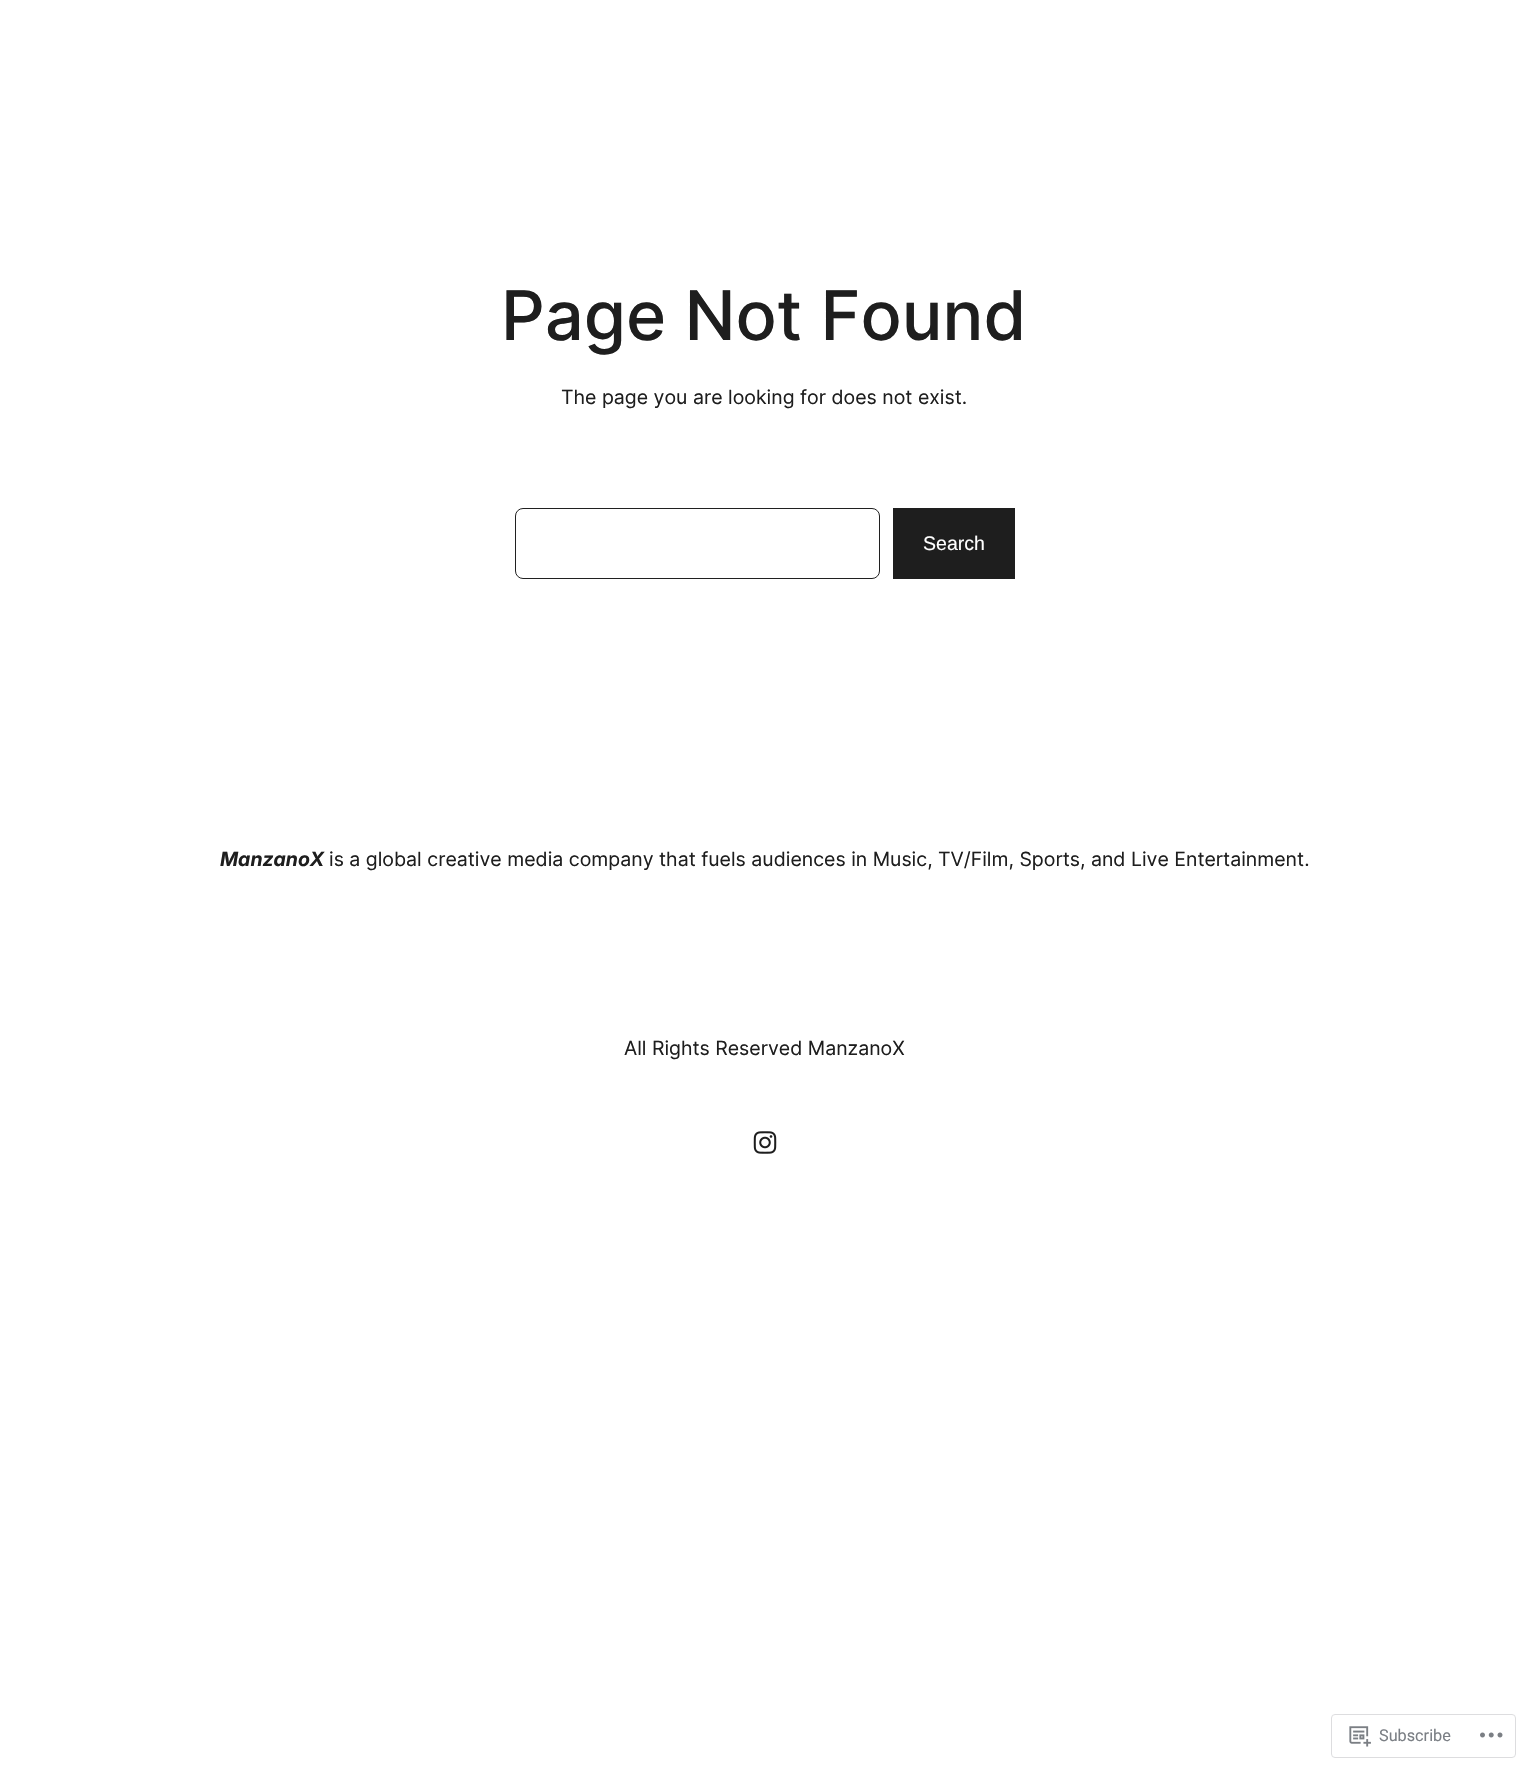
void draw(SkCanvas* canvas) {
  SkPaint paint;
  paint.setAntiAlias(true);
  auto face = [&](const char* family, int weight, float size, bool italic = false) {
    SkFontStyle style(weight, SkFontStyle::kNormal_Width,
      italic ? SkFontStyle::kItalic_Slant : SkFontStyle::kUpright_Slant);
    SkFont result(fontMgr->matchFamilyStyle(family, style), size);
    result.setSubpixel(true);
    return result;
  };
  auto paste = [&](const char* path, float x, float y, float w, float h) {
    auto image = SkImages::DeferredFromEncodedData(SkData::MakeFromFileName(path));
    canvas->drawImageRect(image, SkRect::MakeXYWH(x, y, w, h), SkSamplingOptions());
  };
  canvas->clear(0xffffffff);
  paint.setStroke(true);
  paint.setStrokeWidth(1);
  paint.setColor(0xff202020);
  canvas->drawRoundRect(SkRect::MakeXYWH(515.5f, 508.5f, 364, 70), 7.5f, 7.5f, paint);
  paint.setStroke(false);
  paint.setColor(0xff1e1e1e);
  canvas->drawRect(SkRect::MakeXYWH(893, 508, 122, 71), paint);
  paste("img/1.png", 753, 1131, 24, 23);
  paint.setStroke(true);
  paint.setColor(0xffdddddf);
  canvas->drawRoundRect(SkRect::MakeXYWH(1331.5f, 1714.5f, 184, 43), 3.5f, 3.5f, paint);
  paste("img/2.png", 1349, 1726, 22, 21);
  paste("img/3.png", 1480, 1732, 23, 6);
  auto f0 = face("Inter", 500, 68.5f);
  paint.setStroke(false);
  paint.setColor(0xff1e1e1e);
  canvas->drawString("Page Not Found", 501, 340, f0, paint);
  auto f1 = face("Inter", 400, 19.52f);
  canvas->drawString("The page you are looking for does not exist.", 561, 404, f1, paint);
  auto f2 = face("Liberation Sans", 400, 19.52f);
  paint.setColor(0xffffffff);
  canvas->drawString("Search", 923, 550, f2, paint);
  auto f3 = face("Inter", 700, 19.52f, true);
  paint.setColor(0xff1e1e1e);
  canvas->drawString("ManzanoX", 220, 866, f3, paint);
  canvas->drawString("is a global creative media company that fuels audiences in Music, TV/Film, Sports, and Live Entertainment.", 329, 866, f1, paint);
  canvas->drawString("All Rights Reserved ManzanoX", 624, 1055, f1, paint);
  auto f4 = face("Roboto", 400, 16.25f);
  paint.setColor(0xff7b7f85);
  canvas->drawString("Subscribe", 1379, 1741, f4, paint);
}
